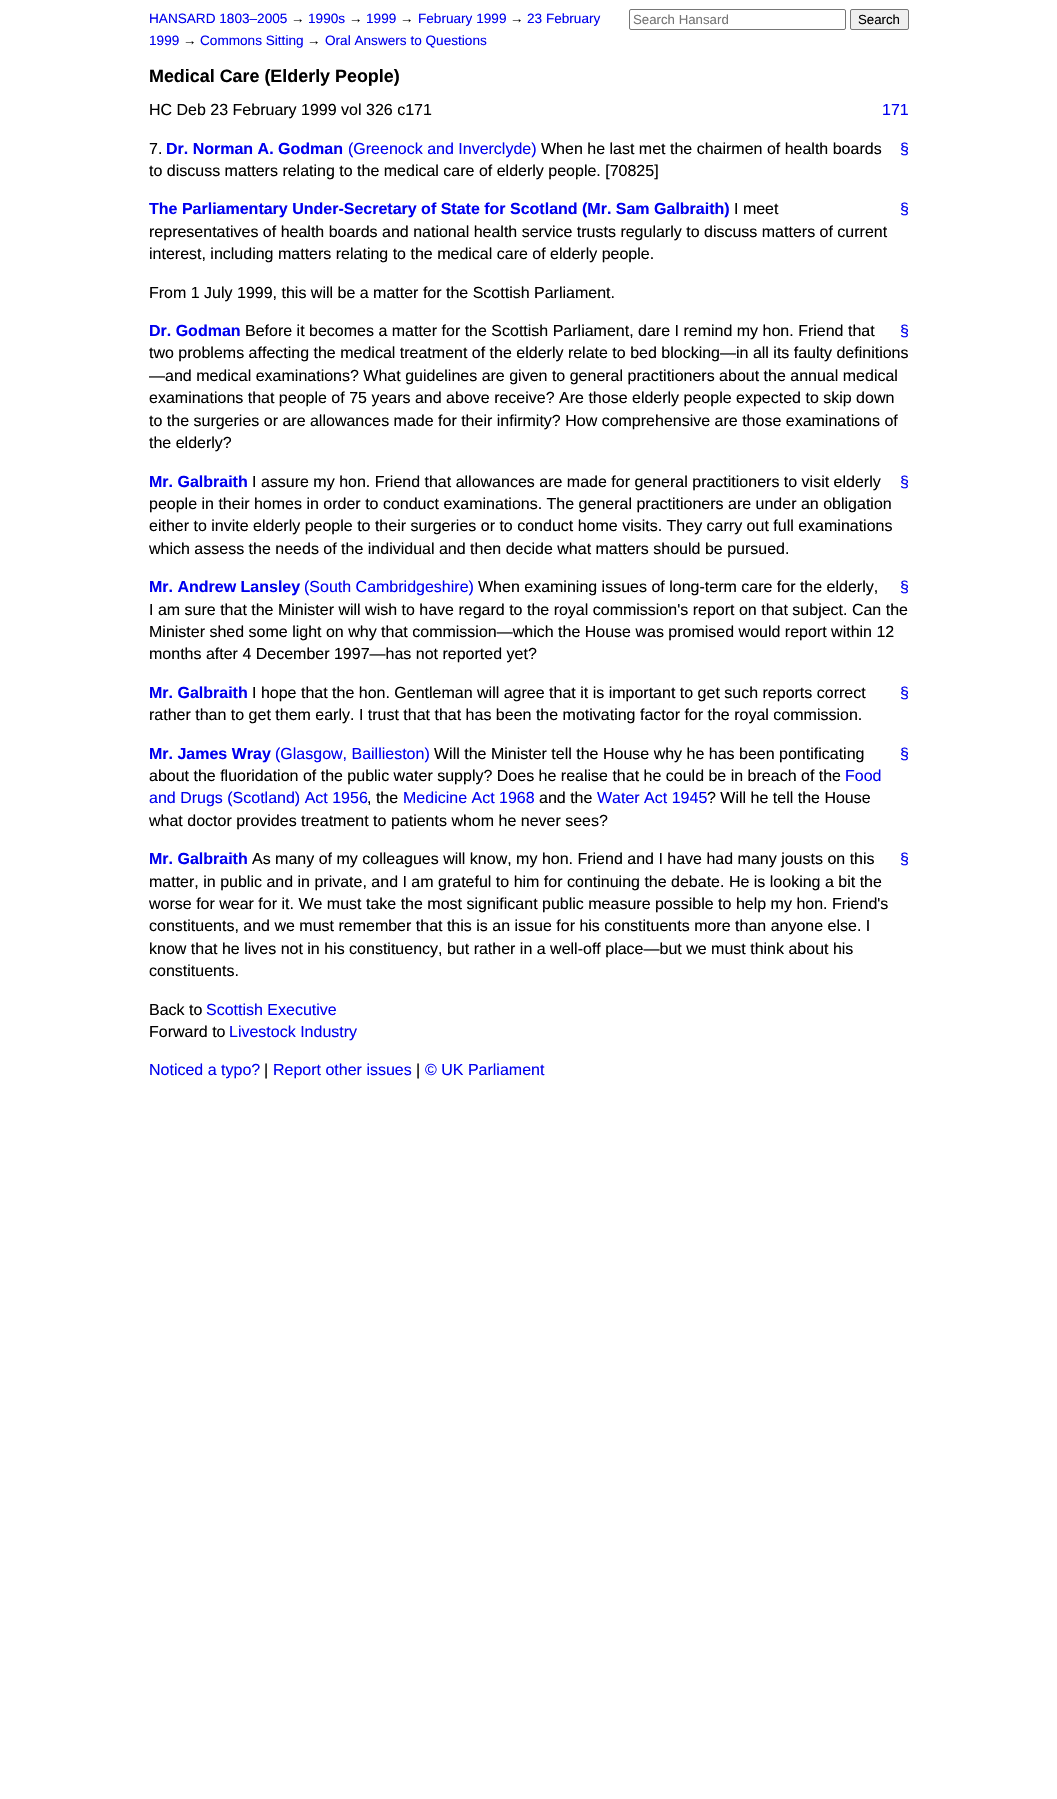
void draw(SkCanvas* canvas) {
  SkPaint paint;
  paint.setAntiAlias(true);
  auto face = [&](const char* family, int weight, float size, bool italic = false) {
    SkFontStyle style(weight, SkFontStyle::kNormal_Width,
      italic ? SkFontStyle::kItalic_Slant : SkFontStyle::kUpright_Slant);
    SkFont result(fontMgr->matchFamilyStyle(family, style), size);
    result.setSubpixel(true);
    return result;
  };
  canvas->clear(0xffffffff);
  paint.setStroke(true);
  paint.setStrokeWidth(1);
  paint.setColor(0xff767676);
  canvas->drawRoundRect(SkRect::MakeXYWH(629.5f, 9.5f, 216, 20), 1.5f, 1.5f, paint);
  paint.setStroke(false);
  paint.setColor(0xffefefef);
  canvas->drawRoundRect(SkRect::MakeXYWH(850.5f, 9.5f, 58, 20), 1.5f, 1.5f, paint);
  paint.setStroke(true);
  paint.setColor(0xff767676);
  canvas->drawRoundRect(SkRect::MakeXYWH(850.5f, 9.5f, 58, 20), 1.5f, 1.5f, paint);
  auto f0 = face("Liberation Sans", 400, 13.6f);
  paint.setStroke(false);
  paint.setColor(0xff0000ee);
  canvas->drawString("HANSARD 1803–2005", 149, 23, f0, paint);
  paint.setColor(0xff000000);
  canvas->drawString("→", 291, 23, f0, paint);
  paint.setColor(0xff0000ee);
  canvas->drawString("1990s", 308, 23, f0, paint);
  paint.setColor(0xff000000);
  canvas->drawString("→", 349, 23, f0, paint);
  paint.setColor(0xff0000ee);
  canvas->drawString("1999", 366, 23, f0, paint);
  paint.setColor(0xff000000);
  canvas->drawString("→", 400, 23, f0, paint);
  paint.setColor(0xff0000ee);
  canvas->drawString("February 1999", 418, 23, f0, paint);
  paint.setColor(0xff000000);
  canvas->drawString("→", 510, 23, f0, paint);
  paint.setColor(0xff0000ee);
  canvas->drawString("23 February", 527, 23, f0, paint);
  canvas->drawString("1999", 149, 45, f0, paint);
  paint.setColor(0xff000000);
  canvas->drawString("→", 183, 45, f0, paint);
  paint.setColor(0xff0000ee);
  canvas->drawString("Commons Sitting", 200, 45, f0, paint);
  paint.setColor(0xff000000);
  canvas->drawString("→", 307, 45, f0, paint);
  paint.setColor(0xff0000ee);
  canvas->drawString("Oral Answers to Questions", 325, 45, f0, paint);
  auto f1 = face("Liberation Sans", 400, 13.25f);
  paint.setColor(0xff757575);
  canvas->drawString("Search Hansard", 633, 24, f1, paint);
  paint.setColor(0xff000000);
  canvas->drawString("Search", 858, 24, f1, paint);
  auto f2 = face("Liberation Sans", 700, 17.9f);
  canvas->drawString("Medical Care (Elderly People)", 149, 82, f2, paint);
  auto f3 = face("Liberation Sans", 400, 16);
  canvas->drawString("HC Deb 23 February 1999 vol 326 c171", 149, 115, f3, paint);
  paint.setColor(0xff0000ee);
  canvas->drawString("171", 882, 115, f3, paint);
  paint.setColor(0xff000000);
  canvas->drawString("7.", 149, 154, f3, paint);
  auto f4 = face("Liberation Sans", 700, 16);
  paint.setColor(0xff0000ee);
  canvas->drawString("Dr. Norman A. Godman", 166, 154, f4, paint);
  canvas->drawString("(Greenock and Inverclyde)", 348, 154, f3, paint);
  paint.setColor(0xff000000);
  canvas->drawString("When he last met the chairmen of health boards", 541, 154, f3, paint);
  paint.setColor(0xff0000ee);
  canvas->drawString("§", 900, 154, f3, paint);
  paint.setColor(0xff000000);
  canvas->drawString("to discuss matters relating to the medical care of elderly people. [70825]", 149, 176, f3, paint);
  paint.setColor(0xff0000ee);
  canvas->drawString("The Parliamentary Under-Secretary of State for Scotland (Mr. Sam Galbraith)", 149, 214, f4, paint);
  paint.setColor(0xff000000);
  canvas->drawString("I meet", 734, 214, f3, paint);
  paint.setColor(0xff0000ee);
  canvas->drawString("§", 900, 214, f3, paint);
  paint.setColor(0xff000000);
  {
    const struct { const char* s; float x, y; } items[] = {
      {"representatives of health boards and national health service trusts regularly to discuss matters of current", 149, 237},
      {"interest, including matters relating to the medical care of elderly people.", 149, 259},
      {"From 1 July 1999, this will be a matter for the Scottish Parliament.", 149, 298},
    };
    for (auto [s, x, y] : items) {
      canvas->drawString(s, x, y, f3, paint);
    }
  }
  paint.setColor(0xff0000ee);
  canvas->drawString("Dr. Godman", 149, 336, f4, paint);
  paint.setColor(0xff000000);
  canvas->drawString("Before it becomes a matter for the Scottish Parliament, dare I remind my hon. Friend that", 245, 336, f3, paint);
  paint.setColor(0xff0000ee);
  canvas->drawString("§", 900, 336, f3, paint);
  paint.setColor(0xff000000);
  {
    const struct { const char* s; float x, y; } items[] = {
      {"two problems affecting the medical treatment of the elderly relate to bed blocking—in all its faulty definitions", 149, 358},
      {"—and medical examinations? What guidelines are given to general practitioners about the annual medical", 149, 381},
      {"examinations that people of 75 years and above receive? Are those elderly people expected to skip down", 149, 403},
      {"to the surgeries or are allowances made for their infirmity? How comprehensive are those examinations of", 149, 426},
      {"the elderly?", 149, 448},
    };
    for (auto [s, x, y] : items) {
      canvas->drawString(s, x, y, f3, paint);
    }
  }
  paint.setColor(0xff0000ee);
  canvas->drawString("Mr. Galbraith", 149, 487, f4, paint);
  paint.setColor(0xff000000);
  canvas->drawString("I assure my hon. Friend that allowances are made for general practitioners to visit elderly", 252, 487, f3, paint);
  paint.setColor(0xff0000ee);
  canvas->drawString("§", 900, 487, f3, paint);
  paint.setColor(0xff000000);
  {
    const struct { const char* s; float x, y; } items[] = {
      {"people in their homes in order to conduct examinations. The general practitioners are under an obligation", 149, 509},
      {"either to invite elderly people to their surgeries or to conduct home visits. They carry out full examinations", 149, 531},
      {"which assess the needs of the individual and then decide what matters should be pursued.", 149, 554},
    };
    for (auto [s, x, y] : items) {
      canvas->drawString(s, x, y, f3, paint);
    }
  }
  paint.setColor(0xff0000ee);
  canvas->drawString("Mr. Andrew Lansley", 149, 592, f4, paint);
  canvas->drawString("(South Cambridgeshire)", 304, 592, f3, paint);
  paint.setColor(0xff000000);
  canvas->drawString("When examining issues of long-term care for the elderly,", 478, 592, f3, paint);
  paint.setColor(0xff0000ee);
  canvas->drawString("§", 900, 592, f3, paint);
  paint.setColor(0xff000000);
  {
    const struct { const char* s; float x, y; } items[] = {
      {"I am sure that the Minister will wish to have regard to the royal commission's report on that subject. Can the", 149, 615},
      {"Minister shed some light on why that commission—which the House was promised would report within 12", 149, 637},
      {"months after 4 December 1997—has not reported yet?", 149, 659},
    };
    for (auto [s, x, y] : items) {
      canvas->drawString(s, x, y, f3, paint);
    }
  }
  paint.setColor(0xff0000ee);
  canvas->drawString("Mr. Galbraith", 149, 698, f4, paint);
  paint.setColor(0xff000000);
  canvas->drawString("I hope that the hon. Gentleman will agree that it is important to get such reports correct", 252, 698, f3, paint);
  paint.setColor(0xff0000ee);
  canvas->drawString("§", 900, 698, f3, paint);
  paint.setColor(0xff000000);
  canvas->drawString("rather than to get them early. I trust that that has been the motivating factor for the royal commission.", 149, 720, f3, paint);
  paint.setColor(0xff0000ee);
  canvas->drawString("Mr. James Wray", 149, 759, f4, paint);
  canvas->drawString("(Glasgow, Baillieston)", 275, 759, f3, paint);
  paint.setColor(0xff000000);
  canvas->drawString("Will the Minister tell the House why he has been pontificating", 434, 759, f3, paint);
  paint.setColor(0xff0000ee);
  canvas->drawString("§", 900, 759, f3, paint);
  paint.setColor(0xff000000);
  canvas->drawString("about the fluoridation of the public water supply? Does he realise that he could be in breach of the", 149, 781, f3, paint);
  paint.setColor(0xff0000ee);
  canvas->drawString("Food", 845, 781, f3, paint);
  canvas->drawString("and Drugs (Scotland) Act 1956", 149, 803, f3, paint);
  paint.setColor(0xff000000);
  canvas->drawString(", the", 367, 803, f3, paint);
  paint.setColor(0xff0000ee);
  canvas->drawString("Medicine Act 1968", 403, 803, f3, paint);
  paint.setColor(0xff000000);
  canvas->drawString("and the", 539, 803, f3, paint);
  paint.setColor(0xff0000ee);
  canvas->drawString("Water Act 1945", 597, 803, f3, paint);
  paint.setColor(0xff000000);
  canvas->drawString("? Will he tell the House", 707, 803, f3, paint);
  canvas->drawString("what doctor provides treatment to patients whom he never sees?", 149, 826, f3, paint);
  paint.setColor(0xff0000ee);
  canvas->drawString("Mr. Galbraith", 149, 864, f4, paint);
  paint.setColor(0xff000000);
  canvas->drawString("As many of my colleagues will know, my hon. Friend and I have had many jousts on this", 252, 864, f3, paint);
  paint.setColor(0xff0000ee);
  canvas->drawString("§", 900, 864, f3, paint);
  paint.setColor(0xff000000);
  {
    const struct { const char* s; float x, y; } items[] = {
      {"matter, in public and in private, and I am grateful to him for continuing the debate. He is looking a bit the", 149, 887},
      {"worse for wear for it. We must take the most significant public measure possible to help my hon. Friend's", 149, 909},
      {"constituents, and we must remember that this is an issue for his constituents more than anyone else. I", 149, 931},
      {"know that he lives not in his constituency, but rather in a well-off place—but we must think about his", 149, 954},
      {"constituents.", 149, 976},
      {"Back to", 149, 1015},
    };
    for (auto [s, x, y] : items) {
      canvas->drawString(s, x, y, f3, paint);
    }
  }
  paint.setColor(0xff0000ee);
  canvas->drawString("Scottish Executive", 206, 1015, f3, paint);
  paint.setColor(0xff000000);
  canvas->drawString("Forward to", 149, 1037, f3, paint);
  paint.setColor(0xff0000ee);
  canvas->drawString("Livestock Industry", 229, 1037, f3, paint);
  canvas->drawString("Noticed a typo?", 149, 1075, f3, paint);
  paint.setColor(0xff000000);
  canvas->drawString("|", 264, 1075, f3, paint);
  paint.setColor(0xff0000ee);
  canvas->drawString("Report other issues", 273, 1075, f3, paint);
  paint.setColor(0xff000000);
  canvas->drawString("|", 416, 1075, f3, paint);
  paint.setColor(0xff0000ee);
  canvas->drawString("© UK Parliament", 425, 1075, f3, paint);
}
